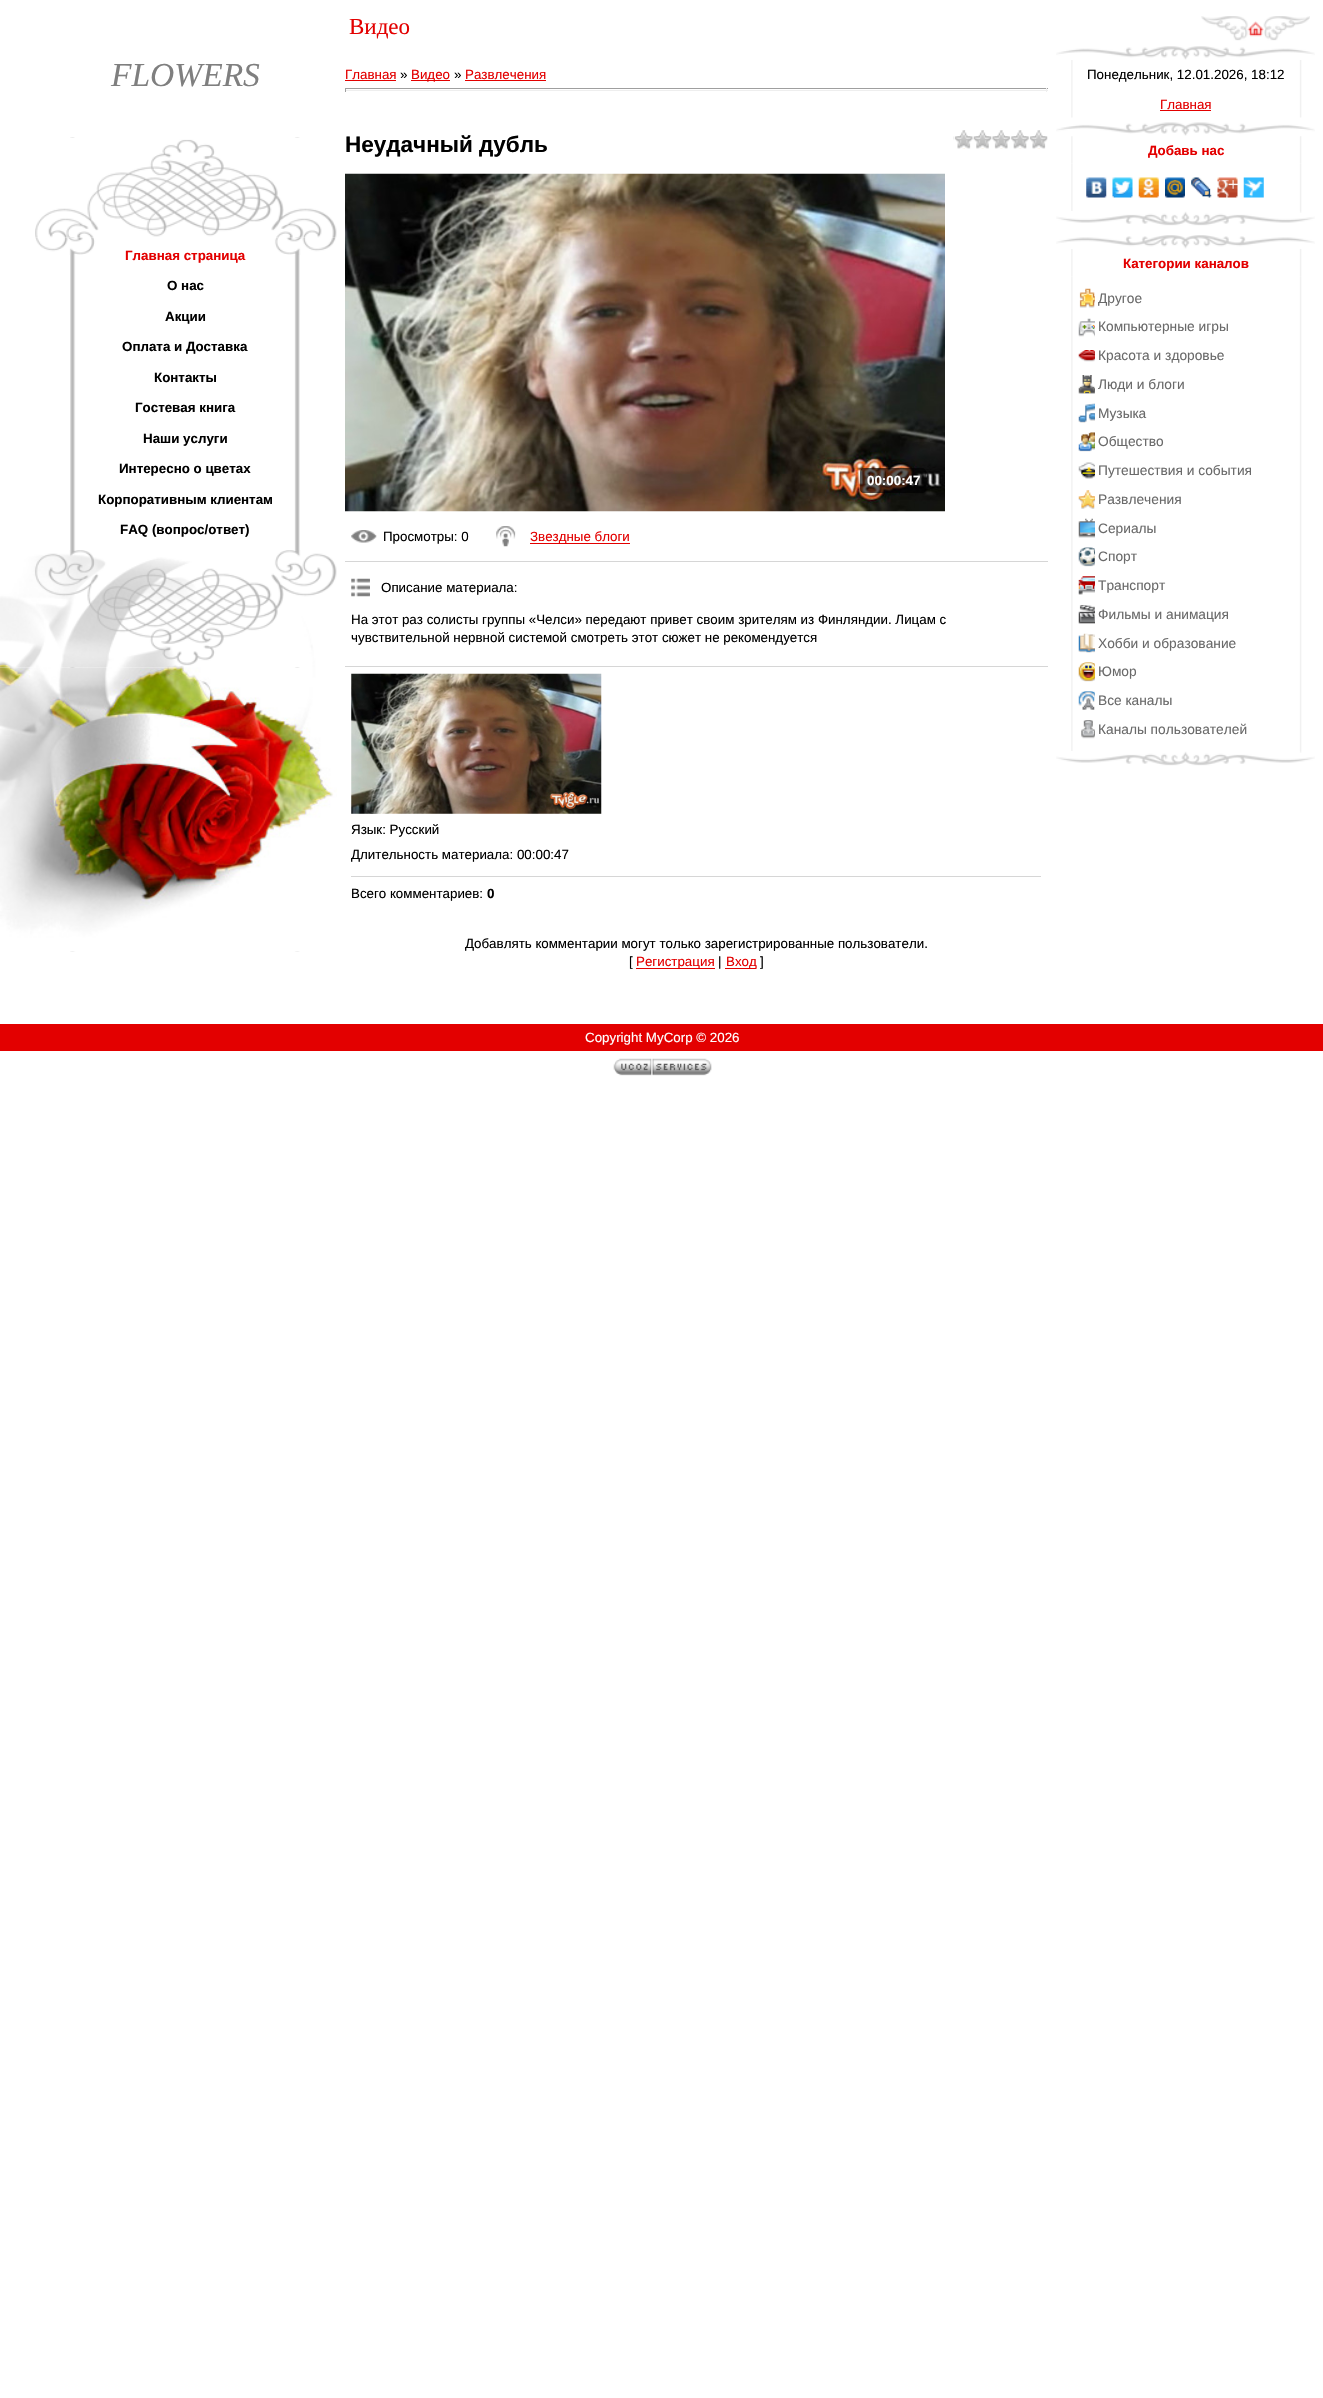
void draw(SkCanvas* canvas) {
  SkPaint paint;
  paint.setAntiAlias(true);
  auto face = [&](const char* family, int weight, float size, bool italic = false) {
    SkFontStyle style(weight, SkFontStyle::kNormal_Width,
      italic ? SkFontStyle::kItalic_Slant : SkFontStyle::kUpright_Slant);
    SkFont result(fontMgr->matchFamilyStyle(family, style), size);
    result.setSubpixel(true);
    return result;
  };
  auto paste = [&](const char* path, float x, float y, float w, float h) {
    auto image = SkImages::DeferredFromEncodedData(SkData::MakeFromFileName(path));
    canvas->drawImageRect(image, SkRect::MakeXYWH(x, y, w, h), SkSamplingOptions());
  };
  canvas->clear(0xffffffff);
  paste("img/1.png", 1201, 16, 109, 25);
  paste("img/2.png", 70, 137, 230, 815);
  paste("img/4.png", 35, 237, 301, 18);
  paste("img/3.png", 35, 137, 302, 101);
  paste("img/5.png", 0, 550, 337, 118);
  paste("img/6.png", 0, 667, 337, 285);
  {
    const struct { float x, y, w, h; SkColor color; } items[] = {
      {345, 80, 51, 1, 0xffe30000},
      {411, 80, 39, 1, 0xffe30000},
      {465, 80, 81, 1, 0xffe30000},
      {345, 88, 703, 1, 0xff9f9f9f},
      {1046, 88, 1, 4, 0xffeeeeee},
      {345, 90, 703, 1, 0xffeeeeee},
      {345, 88, 1, 4, 0xff9f9f9f},
    };
    for (auto [x, y, w, h, color] : items) {
      paint.setColor(color);
      canvas->drawRect(SkRect::MakeXYWH(x, y, w, h), paint);
    }
  }
  paste("img/7.png", 953, 130, 95, 19);
  paste("img/8.png", 345, 173, 600, 339);
  paint.setColor(0xa1000000);
  canvas->drawRoundRect(SkRect::MakeXYWH(860, 468, 66, 25), 4, 4, paint);
  paste("img/9.png", 351, 530, 26, 13);
  paste("img/10.png", 496, 526, 20, 21);
  paint.setColor(0xffe30000);
  canvas->drawRect(SkRect::MakeXYWH(530, 543, 100, 1), paint);
  paint.setColor(0xffd6d6d6);
  canvas->drawRect(SkRect::MakeXYWH(345, 561, 703, 1), paint);
  paste("img/11.png", 351, 578, 19, 19);
  canvas->drawRect(SkRect::MakeXYWH(345, 666, 703, 1), paint);
  paste("img/12.png", 351, 673, 251, 141);
  {
    const struct { float x, y, w, h; SkColor color; } items[] = {
      {351, 876, 690, 1, 0xffd6d6d6},
      {636, 968, 79, 1, 0xffe30000},
      {725, 968, 31, 1, 0xffe30000},
    };
    for (auto [x, y, w, h, color] : items) {
      paint.setColor(color);
      canvas->drawRect(SkRect::MakeXYWH(x, y, w, h), paint);
    }
  }
  paste("img/13.png", 1056, 46, 259, 14);
  paste("img/14.png", 1071, 60, 231, 58);
  canvas->drawRect(SkRect::MakeXYWH(1160, 110, 51, 1), paint);
  paste("img/15.png", 1056, 122, 259, 14);
  paste("img/16.png", 1071, 136, 231, 28);
  paste("img/17.png", 1071, 164, 231, 48);
  paste("img/18.png", 1086, 177, 21, 21);
  paste("img/19.png", 1112, 177, 21, 21);
  paste("img/20.png", 1138, 177, 21, 21);
  paste("img/21.png", 1165, 177, 20, 21);
  paste("img/22.png", 1191, 177, 21, 21);
  paste("img/23.png", 1217, 177, 21, 21);
  paste("img/24.png", 1243, 177, 21, 21);
  paste("img/25.png", 1056, 211, 259, 15);
  paste("img/27.png", 1071, 248, 231, 29);
  paste("img/26.png", 1056, 235, 259, 14);
  paste("img/28.png", 1071, 276, 231, 476);
  paste("img/29.png", 1079, 288, 16, 20);
  paste("img/30.png", 1078, 318, 17, 19);
  paste("img/31.png", 1078, 350, 17, 12);
  paste("img/32.png", 1078, 375, 17, 19);
  paste("img/33.png", 1078, 403, 17, 20);
  paste("img/34.png", 1078, 432, 17, 20);
  paste("img/35.png", 1078, 462, 17, 17);
  paste("img/36.png", 1078, 490, 17, 19);
  paste("img/37.png", 1078, 518, 17, 20);
  paste("img/38.png", 1078, 547, 17, 20);
  paste("img/39.png", 1078, 576, 17, 19);
  paste("img/40.png", 1078, 605, 17, 19);
  paste("img/41.png", 1078, 633, 17, 20);
  paste("img/42.png", 1078, 662, 17, 20);
  paste("img/43.png", 1078, 691, 17, 19);
  paste("img/44.png", 1081, 720, 14, 19);
  paste("img/25.png", 1056, 751, 259, 15);
  canvas->drawRect(SkRect::MakeXYWH(0, 1024, 1323, 27), paint);
  paste("img/45.png", 613, 1058, 99, 18);
  auto f0 = face("Liberation Serif", 400, 23);
  canvas->drawString("Видео", 349, 34, f0, paint);
  auto f1 = face("Liberation Serif", 400, 33.5f, true);
  paint.setColor(0xff7f7f7f);
  canvas->drawString("FLOWERS", 111, 86, f1, paint);
  auto f2 = face("Liberation Sans", 700, 13.35f);
  paint.setColor(0xffe30000);
  canvas->drawString("Главная страница", 125, 260, f2, paint);
  paint.setColor(0xff000000);
  {
    const struct { const char* s; float x, y; } items[] = {
      {"О нас", 167, 290},
      {"Акции", 165, 321},
      {"Оплата и Доставка", 122, 351},
      {"Контакты", 154, 382},
      {"Гостевая книга", 135, 412},
      {"Наши услуги", 143, 443},
      {"Интересно о цветах", 119, 473},
      {"Корпоративным клиентам", 98, 504},
      {"FAQ (вопрос/ответ)", 120, 534},
    };
    for (auto [s, x, y] : items) {
      canvas->drawString(s, x, y, f2, paint);
    }
  }
  auto f3 = face("Liberation Sans", 400, 13.35f);
  paint.setColor(0xffe30000);
  canvas->drawString("Главная", 345, 79, f3, paint);
  paint.setColor(0xff000000);
  canvas->drawString("»", 400, 79, f3, paint);
  paint.setColor(0xffe30000);
  canvas->drawString("Видео", 411, 79, f3, paint);
  paint.setColor(0xff000000);
  canvas->drawString("»", 454, 79, f3, paint);
  paint.setColor(0xffe30000);
  canvas->drawString("Развлечения", 465, 79, f3, paint);
  auto f4 = face("Liberation Sans", 700, 22.5f);
  paint.setColor(0xff000000);
  canvas->drawString("Неудачный дубль", 345, 152, f4, paint);
  paint.setColor(0xffffffff);
  canvas->drawString("00:00:47", 867, 485, f2, paint);
  paint.setColor(0xff000000);
  canvas->drawString("Просмотры: 0", 383, 541, f3, paint);
  paint.setColor(0xffe30000);
  canvas->drawString("Звездные блоги", 530, 541, f3, paint);
  paint.setColor(0xff000000);
  {
    const struct { const char* s; float x, y; } items[] = {
      {"Описание материала:", 381, 592},
      {"На этот раз солисты группы «Челси» передают привет своим зрителям из Финляндии. Лицам с", 351, 624},
      {"чувствительной нервной системой смотреть этот сюжет не рекомендуется", 351, 642},
      {"Язык: Русский", 351, 834},
      {"Длительность материала: 00:00:47", 351, 859},
      {"Всего комментариев:", 351, 898},
    };
    for (auto [s, x, y] : items) {
      canvas->drawString(s, x, y, f3, paint);
    }
  }
  canvas->drawString("0", 487, 898, f2, paint);
  canvas->drawString("Добавлять комментарии могут только зарегистрированные пользователи.", 465, 948, f3, paint);
  canvas->drawString("[", 629, 966, f3, paint);
  paint.setColor(0xffe30000);
  canvas->drawString("Регистрация", 636, 966, f3, paint);
  paint.setColor(0xff000000);
  canvas->drawString("|", 718, 966, f3, paint);
  paint.setColor(0xffe30000);
  canvas->drawString("Вход", 726, 966, f3, paint);
  paint.setColor(0xff000000);
  canvas->drawString("]", 760, 966, f3, paint);
  canvas->drawString("Понедельник, 12.01.2026, 18:12", 1087, 79, f3, paint);
  paint.setColor(0xffe30000);
  canvas->drawString("Главная", 1160, 109, f3, paint);
  canvas->drawString("Добавь нас", 1148, 155, f2, paint);
  canvas->drawString("Категории каналов", 1123, 268, f2, paint);
  auto f5 = face("Liberation Sans", 400, 13.75f);
  paint.setColor(0xff6a6a6a);
  {
    const struct { const char* s; float x, y; } items[] = {
      {"Другое", 1098, 303},
      {"Компьютерные игры", 1098, 331},
      {"Красота и здоровье", 1098, 360},
      {"Люди и блоги", 1098, 389},
      {"Музыка", 1098, 418},
      {"Общество", 1098, 446},
      {"Путешествия и события", 1098, 475},
      {"Развлечения", 1098, 504},
      {"Сериалы", 1098, 533},
      {"Спорт", 1098, 561},
      {"Транспорт", 1098, 590},
      {"Фильмы и анимация", 1098, 619},
      {"Хобби и образование", 1098, 648},
      {"Юмор", 1098, 676},
      {"Все каналы", 1098, 705},
      {"Каналы пользователей", 1098, 734},
    };
    for (auto [s, x, y] : items) {
      canvas->drawString(s, x, y, f5, paint);
    }
  }
  paint.setColor(0xffffffff);
  canvas->drawString("Copyright MyCorp © 2026", 585, 1042, f3, paint);
}
